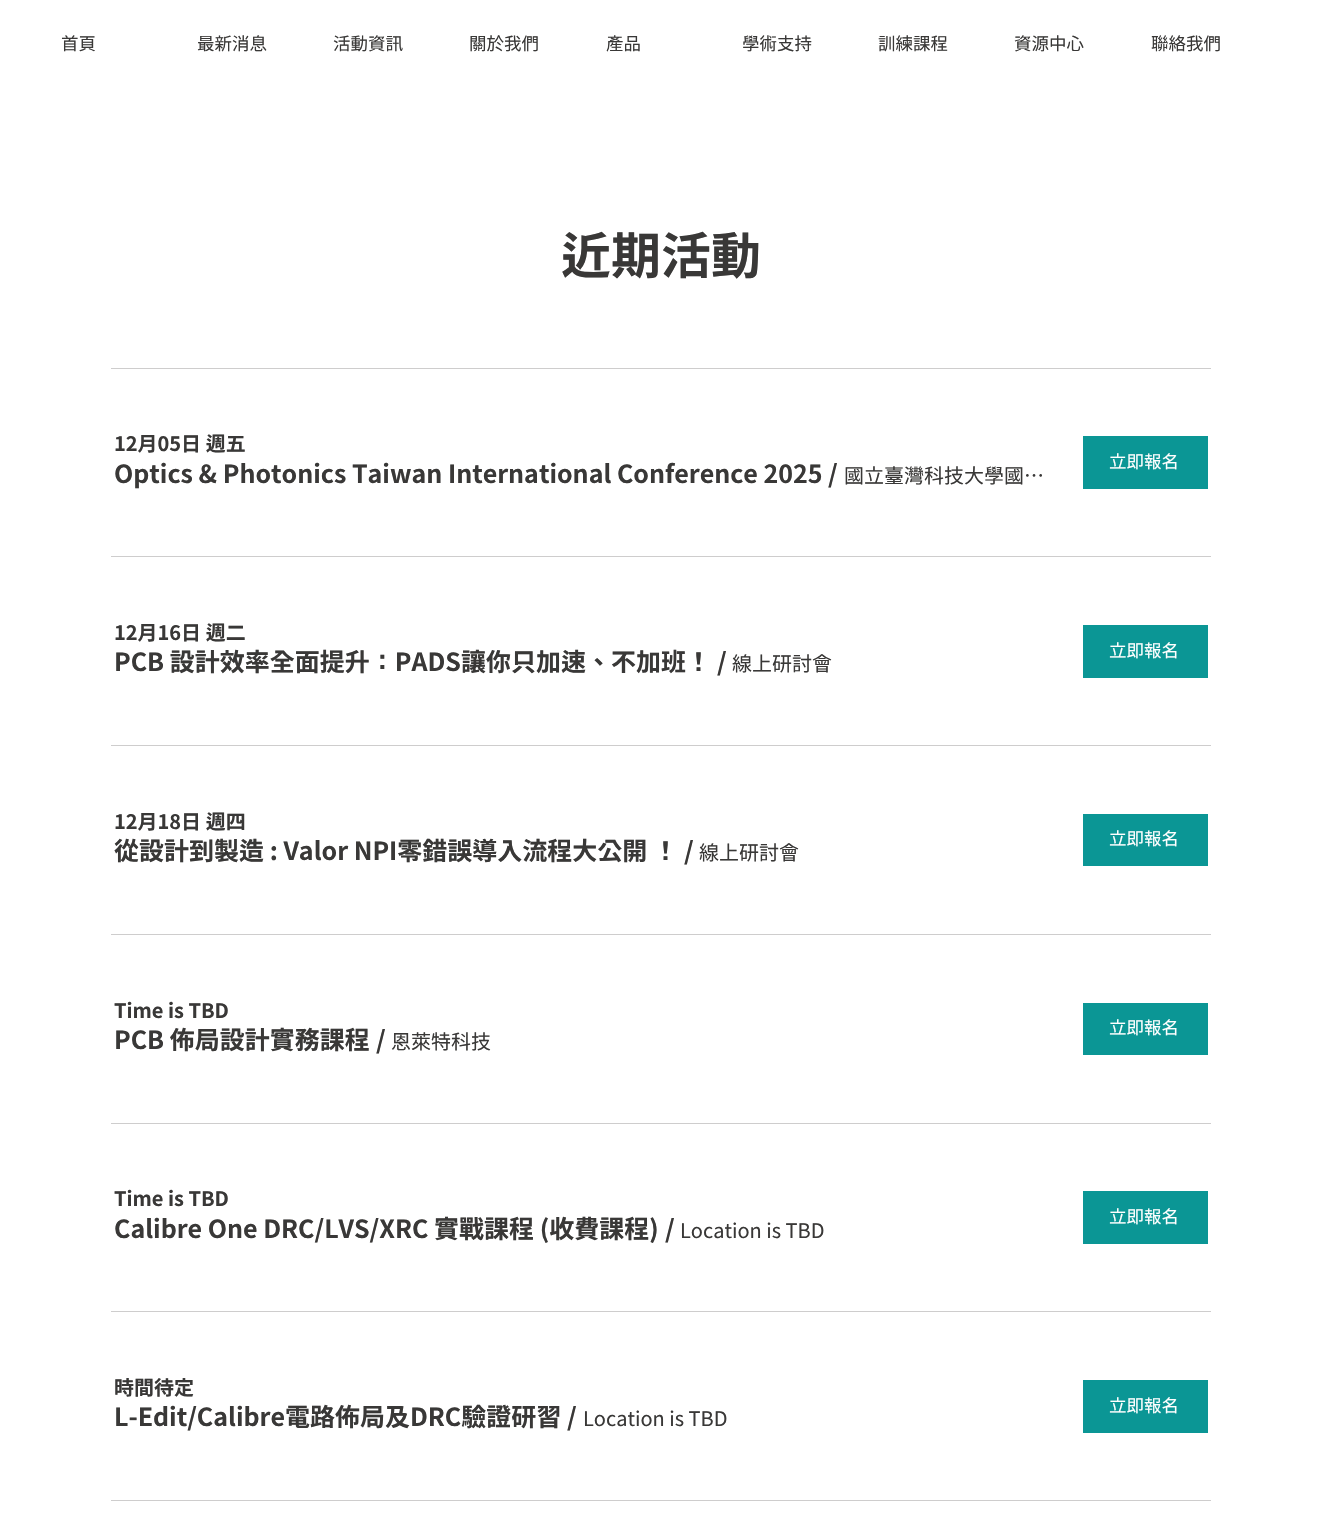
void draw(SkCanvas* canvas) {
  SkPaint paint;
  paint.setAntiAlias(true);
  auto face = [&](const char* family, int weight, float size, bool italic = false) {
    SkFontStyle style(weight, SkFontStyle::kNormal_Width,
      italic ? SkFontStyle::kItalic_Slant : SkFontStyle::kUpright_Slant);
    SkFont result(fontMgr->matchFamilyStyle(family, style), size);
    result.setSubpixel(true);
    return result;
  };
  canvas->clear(0xffffffff);
  {
    const struct { float x, y, w, h; SkColor color; } items[] = {
      {111, 368, 1100, 1, 0xffcecdcd},
      {111, 556, 1100, 1, 0xffcecdcd},
      {1083, 436, 125, 53, 0xff0b9695},
      {111, 745, 1100, 1, 0xffcecdcd},
      {1083, 625, 125, 53, 0xff0b9695},
      {111, 934, 1100, 1, 0xffcecdcd},
      {1083, 814, 125, 52, 0xff0b9695},
      {111, 1123, 1100, 1, 0xffcecdcd},
      {1083, 1003, 125, 52, 0xff0b9695},
      {111, 1311, 1100, 1, 0xffcecdcd},
      {1083, 1191, 125, 53, 0xff0b9695},
      {111, 1500, 1100, 1, 0xffcecdcd},
      {1083, 1380, 125, 53, 0xff0b9695},
    };
    for (auto [x, y, w, h, color] : items) {
      paint.setColor(color);
      canvas->drawRect(SkRect::MakeXYWH(x, y, w, h), paint);
    }
  }
  auto f0 = face("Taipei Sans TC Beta", 400, 17.5f);
  paint.setColor(0xff393837);
  {
    const struct { const char* s; float x, y; } items[] = {
      {"首頁", 61, 50},
      {"最新消息", 197, 50},
      {"活動資訊", 333, 50},
      {"關於我們", 469, 50},
      {"產品", 606, 50},
      {"學術支持", 742, 50},
      {"訓練課程", 878, 50},
      {"資源中心", 1014, 50},
      {"聯絡我們", 1151, 50},
    };
    for (auto [s, x, y] : items) {
      canvas->drawString(s, x, y, f0, paint);
    }
  }
  auto f1 = face("Taipei Sans TC Beta", 700, 50);
  canvas->drawString("近期活動", 561, 274, f1, paint);
  auto f2 = face("Taipei Sans TC Beta", 700, 20);
  canvas->drawString("12月05日 週五", 114, 451, f2, paint);
  auto f3 = face("Taipei Sans TC Beta", 700, 25);
  canvas->drawString("Optics & Photonics Taiwan International Conference 2025", 114, 483, f3, paint);
  canvas->drawString("/", 828, 483, f3, paint);
  auto f4 = face("Taipei Sans TC Beta", 400, 20);
  canvas->drawString("國立臺灣科技大學國…", 844, 483, f4, paint);
  paint.setColor(0xffffffff);
  canvas->drawString("立即報名", 1109, 468, f0, paint);
  paint.setColor(0xff393837);
  canvas->drawString("12月16日 週二", 114, 640, f2, paint);
  canvas->drawString("PCB 設計效率全面提升：PADS讓你只加速、不加班！", 114, 671, f3, paint);
  canvas->drawString("/", 717, 671, f3, paint);
  canvas->drawString("線上研討會", 732, 671, f4, paint);
  paint.setColor(0xffffffff);
  canvas->drawString("立即報名", 1109, 657, f0, paint);
  paint.setColor(0xff393837);
  canvas->drawString("12月18日 週四", 114, 829, f2, paint);
  canvas->drawString("從設計到製造 : Valor NPI零錯誤導入流程大公開 ！", 114, 860, f3, paint);
  canvas->drawString("/", 684, 860, f3, paint);
  canvas->drawString("線上研討會", 699, 860, f4, paint);
  paint.setColor(0xffffffff);
  canvas->drawString("立即報名", 1109, 845, f0, paint);
  paint.setColor(0xff393837);
  canvas->drawString("Time is TBD", 114, 1018, f2, paint);
  canvas->drawString("PCB 佈局設計實務課程", 114, 1049, f3, paint);
  canvas->drawString("/", 376, 1049, f3, paint);
  canvas->drawString("恩萊特科技", 391, 1049, f4, paint);
  paint.setColor(0xffffffff);
  canvas->drawString("立即報名", 1109, 1034, f0, paint);
  paint.setColor(0xff393837);
  canvas->drawString("Time is TBD", 114, 1206, f2, paint);
  canvas->drawString("Calibre One DRC/LVS/XRC 實戰課程 (收費課程)", 114, 1238, f3, paint);
  canvas->drawString("/", 665, 1238, f3, paint);
  canvas->drawString("Location is TBD", 680, 1238, f4, paint);
  paint.setColor(0xffffffff);
  canvas->drawString("立即報名", 1109, 1223, f0, paint);
  paint.setColor(0xff393837);
  canvas->drawString("時間待定", 114, 1395, f2, paint);
  canvas->drawString("L-Edit/Calibre電路佈局及DRC驗證研習", 114, 1426, f3, paint);
  canvas->drawString("/", 567, 1426, f3, paint);
  canvas->drawString("Location is TBD", 583, 1426, f4, paint);
  paint.setColor(0xffffffff);
  canvas->drawString("立即報名", 1109, 1412, f0, paint);
}
